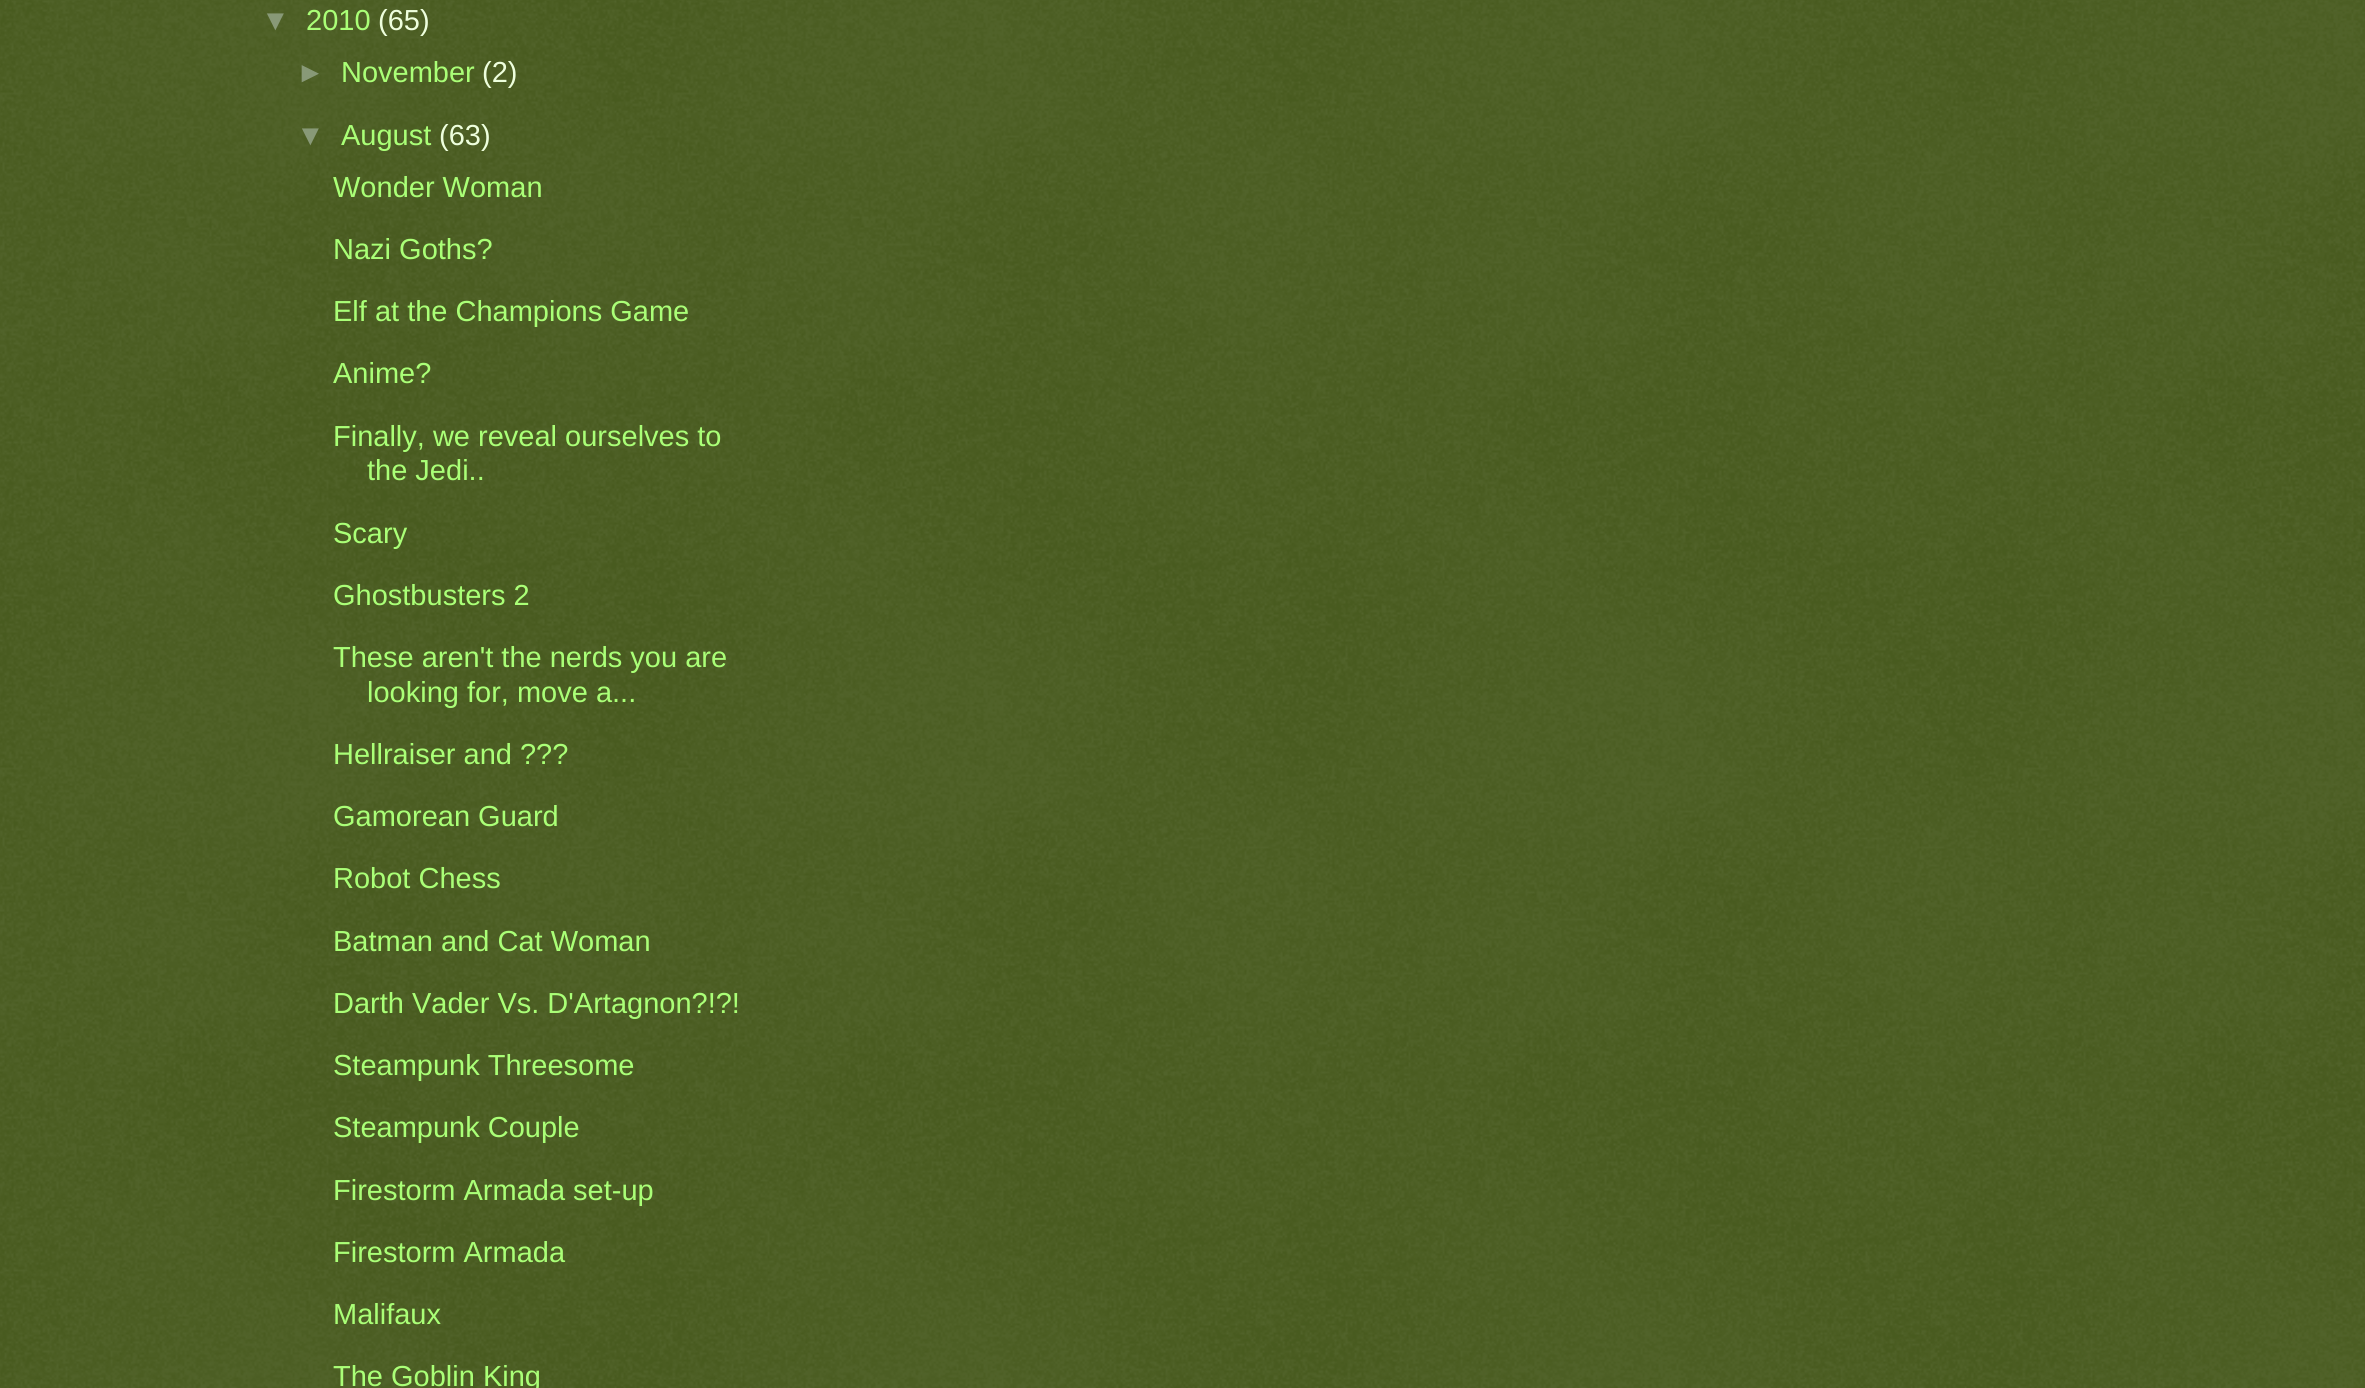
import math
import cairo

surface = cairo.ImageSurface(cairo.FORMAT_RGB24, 2365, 1388)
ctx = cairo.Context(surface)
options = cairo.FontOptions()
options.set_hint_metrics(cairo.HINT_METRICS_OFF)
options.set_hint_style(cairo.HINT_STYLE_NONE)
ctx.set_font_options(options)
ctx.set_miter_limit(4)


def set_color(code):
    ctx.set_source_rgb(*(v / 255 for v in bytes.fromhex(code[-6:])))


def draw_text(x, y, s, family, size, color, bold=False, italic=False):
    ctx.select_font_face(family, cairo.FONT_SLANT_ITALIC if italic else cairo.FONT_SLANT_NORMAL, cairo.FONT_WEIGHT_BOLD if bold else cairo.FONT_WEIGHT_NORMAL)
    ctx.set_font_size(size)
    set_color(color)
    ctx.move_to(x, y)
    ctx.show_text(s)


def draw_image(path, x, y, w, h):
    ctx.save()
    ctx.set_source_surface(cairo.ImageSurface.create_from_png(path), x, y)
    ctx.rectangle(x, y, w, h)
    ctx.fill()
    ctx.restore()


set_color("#2f4400")
ctx.paint()
draw_image("assets/img1.png", 0, 0, 2365, 1388)
draw_text(261, 30, "▼", "Liberation Sans", 29, "#889977")
draw_text(306, 30, "2010", "Liberation Sans", 29, "#aaff77")
draw_text(378, 30, "(65)", "Liberation Sans", 29, "#eeffdd")
draw_text(296, 82, "►", "Liberation Sans", 29, "#889977")
draw_text(341, 82, "November", "Liberation Sans", 29, "#aaff77")
draw_text(482, 82, "(2)", "Liberation Sans", 29, "#eeffdd")
draw_text(296, 145, "▼", "Liberation Sans", 29, "#889977")
draw_text(341, 145, "August", "Liberation Sans", 29, "#aaff77")
draw_text(439, 145, "(63)", "Liberation Sans", 29, "#eeffdd")
draw_text(333, 197, "Wonder Woman", "Liberation Sans", 29, "#aaff77")
draw_text(333, 259, "Nazi Goths?", "Liberation Sans", 29, "#aaff77")
draw_text(333, 321, "Elf at the Champions Game", "Liberation Sans", 29, "#aaff77")
draw_text(333, 383, "Anime?", "Liberation Sans", 29, "#aaff77")
draw_text(333, 446, "Finally, we reveal ourselves to", "Liberation Sans", 29, "#aaff77")
draw_text(367, 480, "the Jedi..", "Liberation Sans", 29, "#aaff77")
draw_text(333, 543, "Scary", "Liberation Sans", 29, "#aaff77")
draw_text(333, 605, "Ghostbusters 2", "Liberation Sans", 29, "#aaff77")
draw_text(333, 667, "These aren't the nerds you are", "Liberation Sans", 29, "#aaff77")
draw_text(367, 702, "looking for, move a...", "Liberation Sans", 29, "#aaff77")
draw_text(333, 764, "Hellraiser and ???", "Liberation Sans", 29, "#aaff77")
draw_text(333, 826, "Gamorean Guard", "Liberation Sans", 29, "#aaff77")
draw_text(333, 888, "Robot Chess", "Liberation Sans", 29, "#aaff77")
draw_text(333, 951, "Batman and Cat Woman", "Liberation Sans", 29, "#aaff77")
draw_text(333, 1013, "Darth Vader Vs. D'Artagnon?!?!", "Liberation Sans", 29, "#aaff77")
draw_text(333, 1075, "Steampunk Threesome", "Liberation Sans", 29, "#aaff77")
draw_text(333, 1137, "Steampunk Couple", "Liberation Sans", 29, "#aaff77")
draw_text(333, 1200, "Firestorm Armada set-up", "Liberation Sans", 29, "#aaff77")
draw_text(333, 1262, "Firestorm Armada", "Liberation Sans", 29, "#aaff77")
draw_text(333, 1324, "Malifaux", "Liberation Sans", 29, "#aaff77")
draw_text(333, 1386, "The Goblin King", "Liberation Sans", 29, "#aaff77")
surface.write_to_png("output.png")
